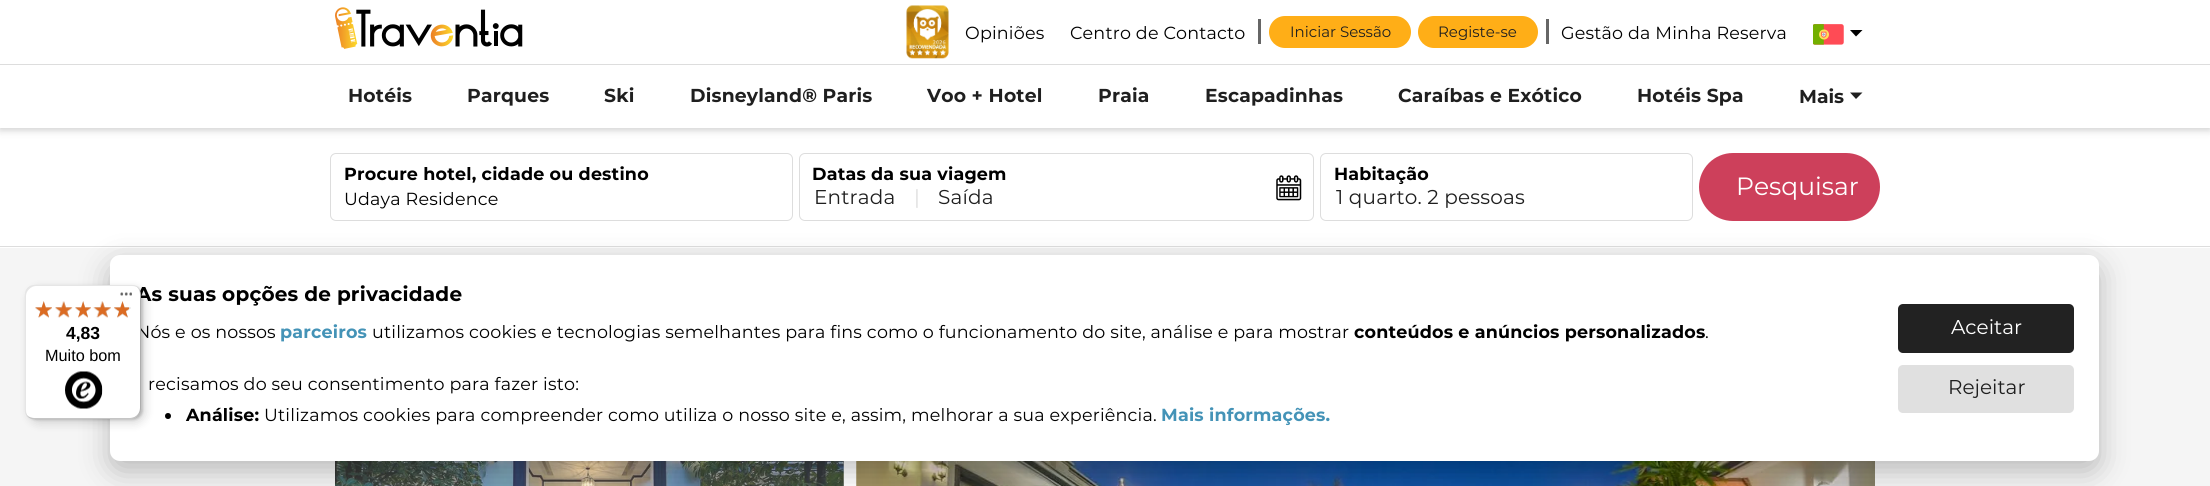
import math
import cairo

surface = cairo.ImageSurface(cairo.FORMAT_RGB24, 2210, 486)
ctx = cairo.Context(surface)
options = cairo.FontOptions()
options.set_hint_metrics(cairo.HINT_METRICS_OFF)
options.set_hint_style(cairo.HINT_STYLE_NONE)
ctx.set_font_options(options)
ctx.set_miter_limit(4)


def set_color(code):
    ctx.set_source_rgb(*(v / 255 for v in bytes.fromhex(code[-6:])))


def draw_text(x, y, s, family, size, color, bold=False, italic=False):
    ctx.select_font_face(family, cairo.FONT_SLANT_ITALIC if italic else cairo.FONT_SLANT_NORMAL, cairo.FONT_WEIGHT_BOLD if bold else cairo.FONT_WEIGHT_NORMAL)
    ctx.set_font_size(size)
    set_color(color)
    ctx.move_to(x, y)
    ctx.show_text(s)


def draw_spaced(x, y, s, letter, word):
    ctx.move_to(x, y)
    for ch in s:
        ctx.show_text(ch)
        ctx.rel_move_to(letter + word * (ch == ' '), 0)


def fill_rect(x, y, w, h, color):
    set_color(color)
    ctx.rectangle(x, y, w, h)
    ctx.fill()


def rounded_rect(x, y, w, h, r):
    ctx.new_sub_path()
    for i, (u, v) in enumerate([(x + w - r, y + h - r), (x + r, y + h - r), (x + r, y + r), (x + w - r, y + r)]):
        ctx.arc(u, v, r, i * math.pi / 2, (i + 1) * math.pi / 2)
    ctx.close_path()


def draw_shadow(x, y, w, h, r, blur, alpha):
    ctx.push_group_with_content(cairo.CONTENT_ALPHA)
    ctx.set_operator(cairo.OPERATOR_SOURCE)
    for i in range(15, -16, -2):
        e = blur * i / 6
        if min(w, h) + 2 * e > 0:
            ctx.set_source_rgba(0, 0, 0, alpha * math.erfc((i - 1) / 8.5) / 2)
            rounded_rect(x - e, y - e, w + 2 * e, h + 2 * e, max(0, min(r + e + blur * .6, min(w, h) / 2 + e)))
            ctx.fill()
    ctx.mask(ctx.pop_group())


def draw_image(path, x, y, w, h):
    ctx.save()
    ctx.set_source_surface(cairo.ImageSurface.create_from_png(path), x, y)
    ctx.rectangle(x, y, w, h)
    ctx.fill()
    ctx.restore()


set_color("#f5f5f5")
ctx.paint()
fill_rect(0, 128, 2210, 120, "#ffffff")
set_color("#000000")
draw_shadow(0, 3, 2210, 127, 0, 4, 0.2)
fill_rect(0, 0, 2210, 128, "#ffffff")
draw_image("assets/img1.png", 335, 7, 188, 42)
draw_image("assets/img2.png", 906, 5, 43, 54)
ctx.select_font_face("Montserrat")
ctx.set_font_size(17.5)
set_color("#000000")
draw_spaced(965, 39, "Opiniões", 0.19, 0)
draw_spaced(1070, 39, "Centro de Contacto", 0.19, 0)
fill_rect(1258, 19, 3, 25, "#666666")
set_color("#ffae17")
rounded_rect(1269, 16, 142, 32, 16)
ctx.fill()
draw_text(1290, 37, "Iniciar Sessão", "Montserrat", 15, "#1f1f1f")
set_color("#ffae17")
rounded_rect(1418, 16, 120, 32, 16)
ctx.fill()
draw_text(1438, 37, "Registe-se", "Montserrat", 15, "#1f1f1f")
fill_rect(1546, 19, 3, 25, "#666666")
ctx.set_font_size(17.5)
set_color("#000000")
draw_spaced(1561, 39, "Gestão da Minha Reserva", 0.19, 0)
draw_image("assets/img3.png", 1813, 24, 31, 21)
ctx.new_path()
ctx.move_to(1856, 36.5)
ctx.line_to(1850, 30)
ctx.line_to(1862.5, 30)
ctx.close_path()
ctx.fill()
fill_rect(0, 64, 2210, 1, "#dddddd")
ctx.select_font_face("Montserrat", cairo.FONT_SLANT_NORMAL, cairo.FONT_WEIGHT_BOLD)
ctx.set_font_size(18.75)
set_color("#1f1f1f")
draw_spaced(348, 102, "Hotéis", 0.19, 0)
draw_spaced(467, 102, "Parques", 0.19, 0)
draw_spaced(604, 102, "Ski", 0.19, 0)
draw_spaced(690, 102, "Disneyland® Paris", 0.19, 0)
draw_spaced(927, 102, "Voo + Hotel", 0.19, 0)
draw_spaced(1098, 102, "Praia", 0.19, 0)
draw_spaced(1205, 102, "Escapadinhas", 0.19, 0)
draw_spaced(1398, 102, "Caraíbas e Exótico", 0.19, 0)
draw_spaced(1637, 102, "Hotéis Spa", 0.19, 0)
draw_text(1799, 103, "Mais", "Montserrat", 18.75, "#1f1f1f", bold=True)
ctx.new_path()
ctx.move_to(1856, 99)
ctx.line_to(1850, 92.5)
ctx.line_to(1862.5, 92.5)
ctx.close_path()
ctx.fill()
fill_rect(0, 246, 2210, 1, "#dddddd")
rounded_rect(330.5, 153.5, 462, 67, 5.5)
ctx.set_line_width(1)
ctx.stroke()
ctx.set_font_size(17.5)
set_color("#000000")
draw_spaced(344, 180, "Procure hotel, cidade ou destino", 0.19, 0)
ctx.select_font_face("Montserrat")
draw_spaced(344, 205, "Udaya Residence", 0.19, 0)
rounded_rect(799.5, 153.5, 514, 67, 5.5)
set_color("#dddddd")
ctx.stroke()
ctx.select_font_face("Montserrat", cairo.FONT_SLANT_NORMAL, cairo.FONT_WEIGHT_BOLD)
set_color("#000000")
draw_spaced(812, 180, "Datas da sua viagem", 0.19, 0)
ctx.select_font_face("Montserrat")
ctx.set_font_size(20)
set_color("#1f1f1f")
draw_spaced(814, 204, "Entrada", 0.19, 0)
set_color("#dddddd")
draw_spaced(914, 204, "|", 0.19, 0)
set_color("#1f1f1f")
draw_spaced(938, 204, "Saída", 0.19, 0)
draw_image("assets/img4.png", 1276, 175, 26, 26)
rounded_rect(1320.5, 153.5, 372, 67, 5.5)
set_color("#dddddd")
ctx.stroke()
ctx.select_font_face("Montserrat", cairo.FONT_SLANT_NORMAL, cairo.FONT_WEIGHT_BOLD)
ctx.set_font_size(17.5)
set_color("#000000")
draw_spaced(1334, 180, "Habitação", 0.19, 0)
ctx.select_font_face("Montserrat")
ctx.set_font_size(20)
set_color("#1f1f1f")
draw_spaced(1336, 204, "1 quarto. 2 pessoas", 0.19, 0)
set_color("#cd405b")
rounded_rect(1699, 153, 181, 68, 34)
ctx.fill()
draw_text(1736, 195, "Pesquisar", "Montserrat", 25, "#ffffff")
fill_rect(335, 461, 522, 25, "#ffffff")
draw_image("assets/img5.png", 335, 461, 509, 25)
draw_image("assets/img6.png", 856, 461, 1019, 25)
set_color("#000000")
draw_shadow(110, 265, 1989, 206, 10, 15, 0.25)
set_color("#ffffff")
rounded_rect(110, 255, 1989, 206, 10)
ctx.fill()
set_color("#000000")
draw_shadow(29, 289, 116, 134, 10, 5, 0.15)
draw_shadow(26, 286, 117, 134, 10, 1, 0.15)
ctx.select_font_face("Montserrat", cairo.FONT_SLANT_NORMAL, cairo.FONT_WEIGHT_BOLD)
ctx.set_font_size(20)
set_color("#000000")
draw_spaced(136, 301, "As suas opções de privacidade", 0.19, 0)
ctx.select_font_face("Montserrat")
ctx.set_font_size(17.5)
draw_spaced(136, 338, "Nós e os nossos", 0.19, 0)
set_color("#ffffff")
rounded_rect(25, 285, 116, 134, 10)
ctx.fill()
ctx.set_source_rgba(0, 0, 0, 0.1)
ctx.new_path()
ctx.move_to(36, 286)
ctx.line_to(132, 286)
ctx.curve_to(135, 286, 137, 287, 139, 288)
ctx.curve_to(137, 286, 134, 285, 131, 285)
ctx.line_to(35, 285)
ctx.curve_to(29, 285, 25, 289, 25, 295)
ctx.line_to(25, 409)
ctx.curve_to(25, 412, 26, 415, 28, 417)
ctx.curve_to(27, 415, 26, 413, 26, 410)
ctx.line_to(26, 296)
ctx.curve_to(26, 291, 31, 286, 36, 286)
ctx.close_path()
ctx.fill()
ctx.set_source_rgba(0, 0, 0, 0.2)
ctx.new_path()
ctx.move_to(27, 416)
ctx.curve_to(29, 418, 32, 419, 35, 419)
ctx.line_to(131, 419)
ctx.curve_to(137, 419, 141, 415, 141, 409)
ctx.line_to(141, 295)
ctx.curve_to(141, 293, 140, 290, 139, 289)
ctx.curve_to(140, 290, 140, 292, 140, 294)
ctx.line_to(140, 408)
ctx.curve_to(140, 413, 136, 418, 130, 418)
ctx.line_to(34, 418)
ctx.curve_to(31, 418, 29, 417, 27, 416)
ctx.close_path()
ctx.fill()
ctx.set_source_rgba(0.196, 0.196, 0.196, 0.2)
ctx.new_path()
ctx.move_to(27, 415)
ctx.curve_to(29, 418, 32, 419, 35, 419)
ctx.line_to(131, 419)
ctx.curve_to(137, 419, 141, 415, 141, 409)
ctx.line_to(141, 295)
ctx.curve_to(141, 292, 140, 289, 137, 287)
ctx.curve_to(139, 289, 140, 292, 140, 294)
ctx.line_to(140, 408)
ctx.curve_to(140, 414, 136, 418, 130, 418)
ctx.line_to(34, 418)
ctx.curve_to(32, 418, 29, 417, 27, 415)
ctx.close_path()
ctx.fill()
draw_image("assets/img7.png", 120, 292, 12, 4)
ctx.set_source_rgba(1, 1, 1, 0.3)
ctx.new_path()
ctx.move_to(27, 415)
ctx.curve_to(29, 418, 32, 419, 35, 419)
ctx.line_to(131, 419)
ctx.curve_to(137, 419, 141, 415, 141, 409)
ctx.line_to(141, 408)
ctx.curve_to(141, 414, 136, 418, 131, 418)
ctx.line_to(34, 418)
ctx.curve_to(32, 418, 29, 417, 27, 415)
ctx.close_path()
ctx.fill()
draw_image("assets/img8.png", 35, 301, 17, 17)
draw_image("assets/img9.png", 55, 301, 17, 17)
draw_image("assets/img10.png", 75, 301, 16, 17)
draw_image("assets/img11.png", 93, 301, 18, 17)
draw_image("assets/img12.png", 114, 301, 17, 17)
draw_image("assets/img13.png", 35, 301, 17, 17)
draw_image("assets/img14.png", 55, 301, 18, 17)
draw_image("assets/img15.png", 75, 301, 16, 17)
draw_image("assets/img16.png", 93, 301, 18, 17)
draw_image("assets/img17.png", 114, 301, 15, 17)
draw_text(66, 339, "4,83", "Liberation Sans", 17.5, "#000000", bold=True)
draw_text(45, 361, "Muito bom", "Liberation Sans", 16.25, "#000000")
draw_image("assets/img18.png", 65, 371, 38, 38)
ctx.select_font_face("Montserrat", cairo.FONT_SLANT_NORMAL, cairo.FONT_WEIGHT_BOLD)
ctx.set_font_size(17.5)
set_color("#4493b7")
draw_spaced(280, 338, "parceiros", 0.19, 0)
ctx.select_font_face("Montserrat")
set_color("#000000")
draw_spaced(372, 338, "utilizamos cookies e tecnologias semelhantes para fins como o funcionamento do site, análise e para mostrar", 0.19, 0)
ctx.select_font_face("Montserrat", cairo.FONT_SLANT_NORMAL, cairo.FONT_WEIGHT_BOLD)
draw_spaced(1354, 338, "conteúdos e anúncios personalizados", 0.19, 0)
ctx.select_font_face("Montserrat")
draw_spaced(1705, 338, ".", 0.19, 0)
draw_spaced(148, 390, "recisamos do seu consentimento para fazer isto:", 0.19, 0)
ctx.new_path()
ctx.arc(168, 416, 3, 0, 2 * math.pi)
ctx.fill()
ctx.select_font_face("Montserrat", cairo.FONT_SLANT_NORMAL, cairo.FONT_WEIGHT_BOLD)
draw_spaced(186, 421, "Análise:", 0.19, 0)
ctx.select_font_face("Montserrat")
draw_spaced(264, 421, "Utilizamos cookies para compreender como utiliza o nosso site e, assim, melhorar a sua experiência.", 0.19, 0)
ctx.select_font_face("Montserrat", cairo.FONT_SLANT_NORMAL, cairo.FONT_WEIGHT_BOLD)
set_color("#4493b7")
draw_spaced(1161, 421, "Mais informações.", 0.19, 0)
set_color("#222222")
rounded_rect(1898, 304, 176, 49, 5)
ctx.fill()
draw_text(1951, 334, "Aceitar", "Montserrat", 20, "#ffffff")
set_color("#e0e0e0")
rounded_rect(1898, 365, 176, 48, 5)
ctx.fill()
draw_text(1948, 394, "Rejeitar", "Montserrat", 20, "#1f1f1f")
surface.write_to_png("output.png")
